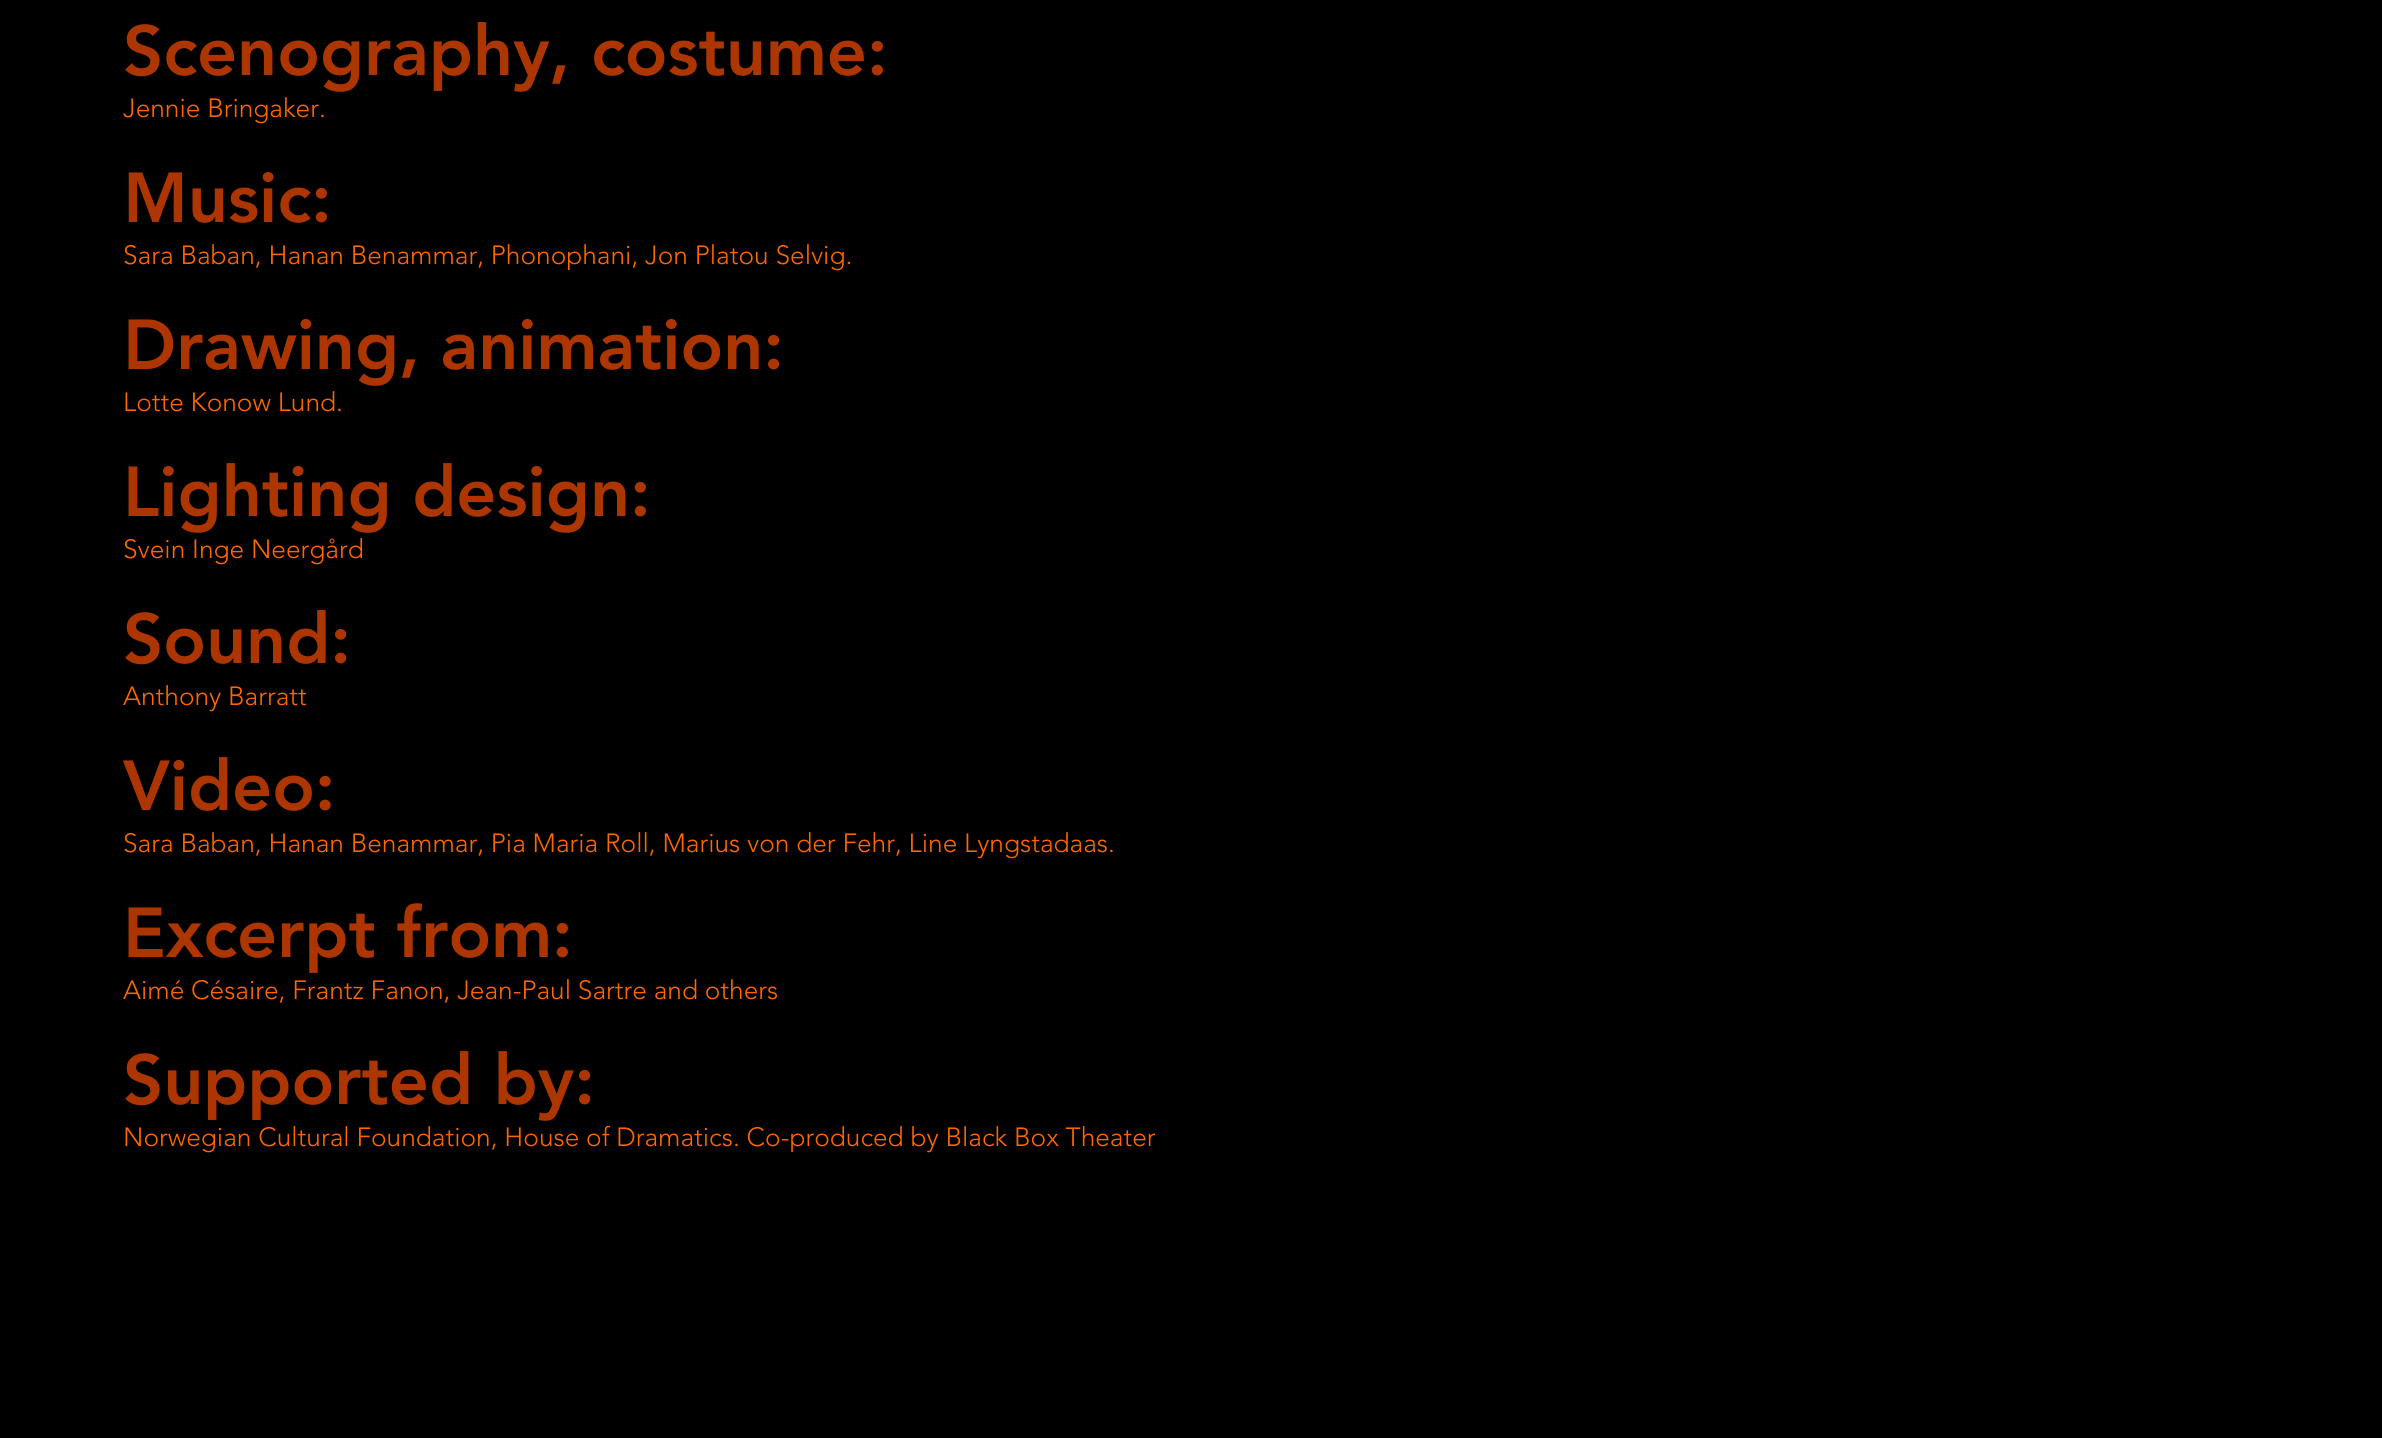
import math
import cairo

surface = cairo.ImageSurface(cairo.FORMAT_RGB24, 2382, 1438)
ctx = cairo.Context(surface)
options = cairo.FontOptions()
options.set_hint_metrics(cairo.HINT_METRICS_OFF)
options.set_hint_style(cairo.HINT_STYLE_NONE)
ctx.set_font_options(options)
ctx.set_miter_limit(4)


def set_color(code):
    ctx.set_source_rgb(*(v / 255 for v in bytes.fromhex(code[-6:])))


def draw_text(x, y, s, family, size, color, bold=False, italic=False):
    ctx.select_font_face(family, cairo.FONT_SLANT_ITALIC if italic else cairo.FONT_SLANT_NORMAL, cairo.FONT_WEIGHT_BOLD if bold else cairo.FONT_WEIGHT_NORMAL)
    ctx.set_font_size(size)
    set_color(color)
    ctx.move_to(x, y)
    ctx.show_text(s)


set_color("#000000")
ctx.paint()
draw_text(123, 75, "Scenography, costume:", "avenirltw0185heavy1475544 Black", 70, "#ad3600")
draw_text(123, 117, "Jennie Bringaker.", "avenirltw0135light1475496 Light", 26.25, "#ff6600")
draw_text(123, 222, "Music:", "avenirltw0185heavy1475544 Black", 70, "#ad3600")
draw_text(123, 264, "Sara Baban, Hanan Benammar, Phonophani, Jon Platou Selvig.", "avenirltw0135light1475496 Light", 26.25, "#ff6600")
draw_text(123, 369, "Drawing, animation:", "avenirltw0185heavy1475544 Black", 70, "#ad3600")
draw_text(123, 411, "Lotte Konow Lund.", "avenirltw0135light1475496 Light", 26.25, "#ff6600")
draw_text(123, 516, "Lighting design:", "avenirltw0185heavy1475544 Black", 70, "#ad3600")
draw_text(123, 558, "Svein Inge Neergård", "avenirltw0135light1475496 Light", 26.25, "#ff6600")
draw_text(123, 663, "Sound:", "avenirltw0185heavy1475544 Black", 70, "#ad3600")
draw_text(123, 705, "Anthony Barratt", "avenirltw0135light1475496 Light", 26.25, "#ff6600")
draw_text(123, 810, "Video:", "avenirltw0185heavy1475544 Black", 70, "#ad3600")
draw_text(123, 852, "Sara Baban, Hanan Benammar, Pia Maria Roll, Marius von der Fehr, Line Lyngstadaas.", "avenirltw0135light1475496 Light", 26.25, "#ff6600")
draw_text(123, 957, "Excerpt from:", "avenirltw0185heavy1475544 Black", 70, "#ad3600")
draw_text(123, 999, "Aimé Césaire, Frantz Fanon, Jean-Paul Sartre and others", "avenirltw0135light1475496 Light", 26.25, "#ff6600")
draw_text(123, 1104, "Supported by:", "avenirltw0185heavy1475544 Black", 70, "#ad3600")
draw_text(123, 1146, "Norwegian Cultural Foundation, House of Dramatics. Co-produced by Black Box Theater", "avenirltw0135light1475496 Light", 26.25, "#ff6600")
surface.write_to_png("output.png")
